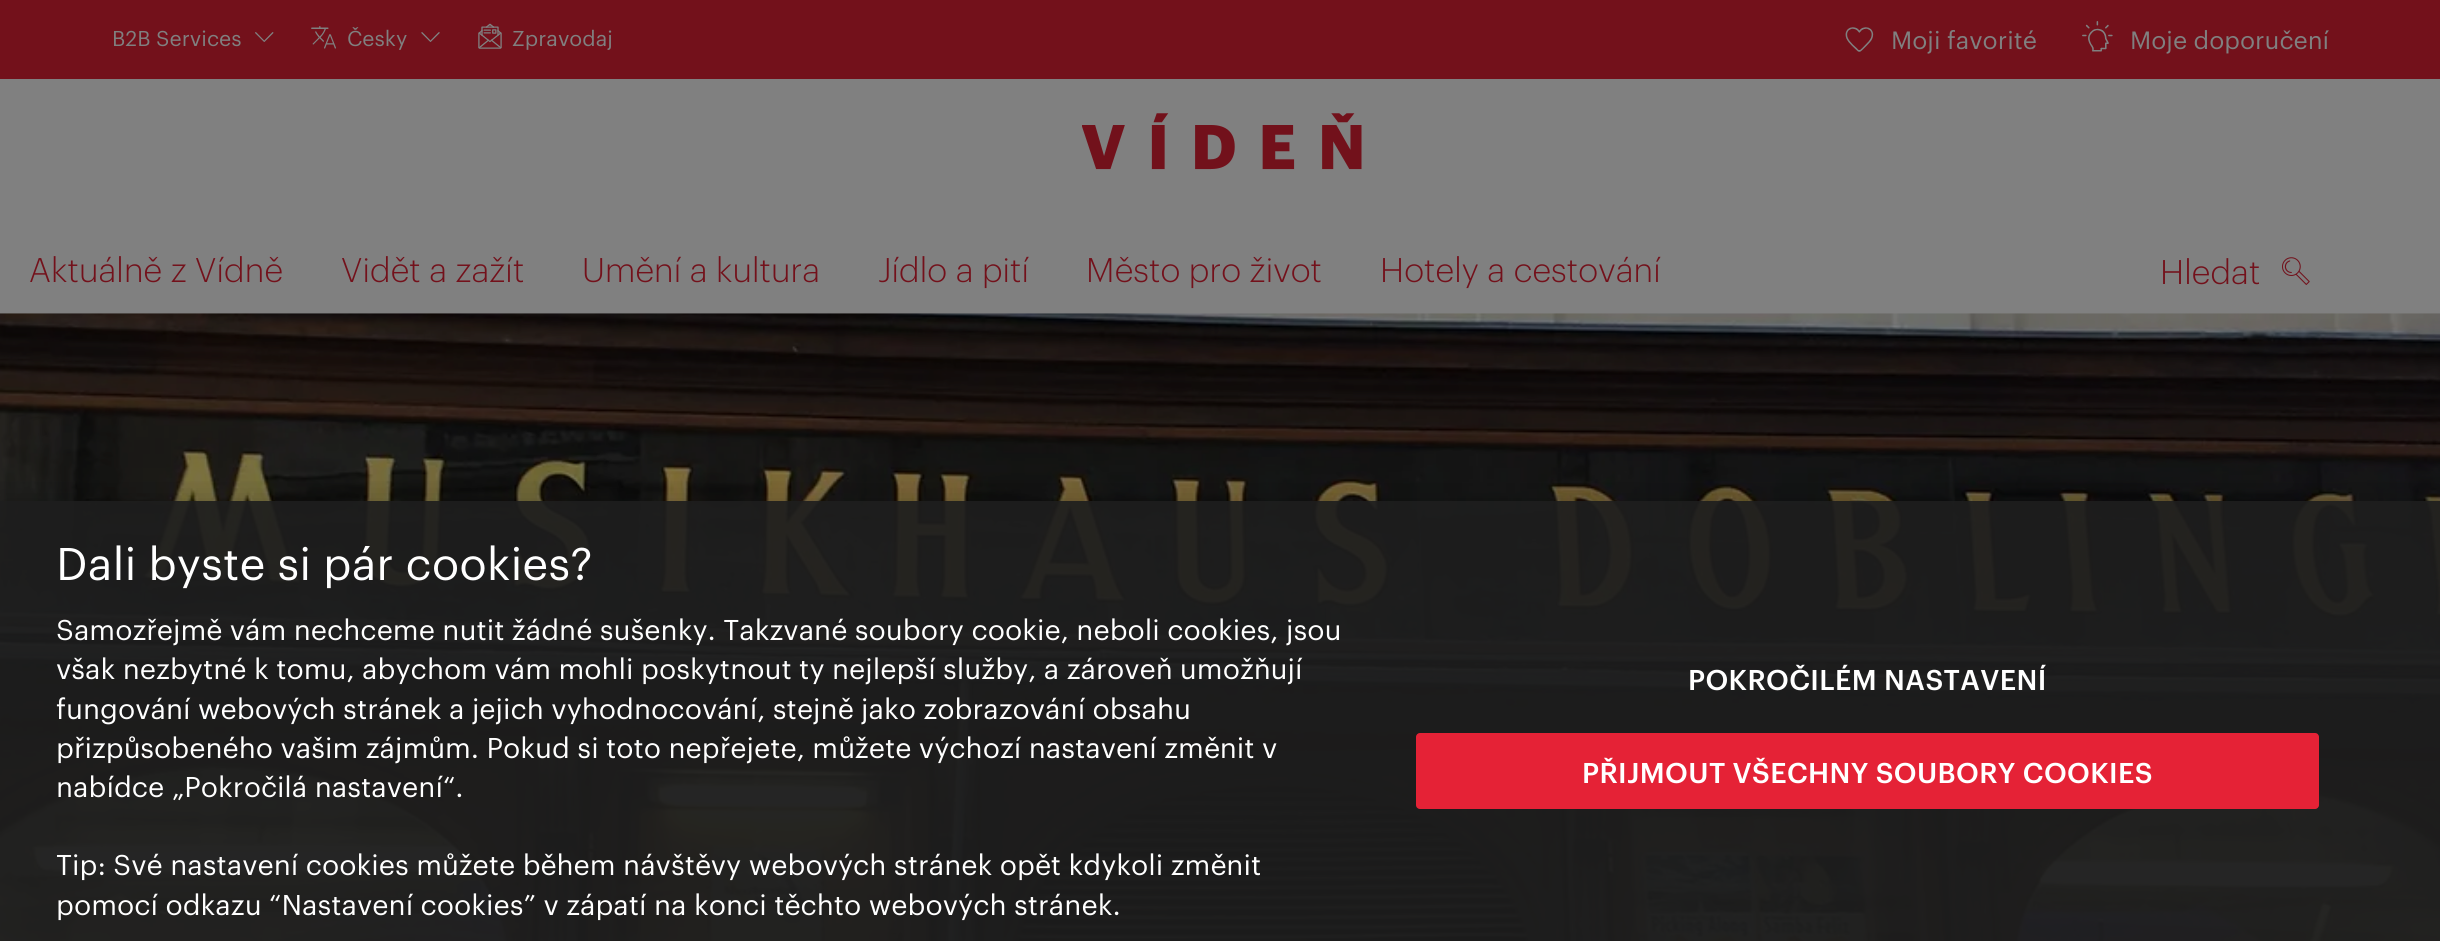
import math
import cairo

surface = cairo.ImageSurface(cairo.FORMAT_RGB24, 2440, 941)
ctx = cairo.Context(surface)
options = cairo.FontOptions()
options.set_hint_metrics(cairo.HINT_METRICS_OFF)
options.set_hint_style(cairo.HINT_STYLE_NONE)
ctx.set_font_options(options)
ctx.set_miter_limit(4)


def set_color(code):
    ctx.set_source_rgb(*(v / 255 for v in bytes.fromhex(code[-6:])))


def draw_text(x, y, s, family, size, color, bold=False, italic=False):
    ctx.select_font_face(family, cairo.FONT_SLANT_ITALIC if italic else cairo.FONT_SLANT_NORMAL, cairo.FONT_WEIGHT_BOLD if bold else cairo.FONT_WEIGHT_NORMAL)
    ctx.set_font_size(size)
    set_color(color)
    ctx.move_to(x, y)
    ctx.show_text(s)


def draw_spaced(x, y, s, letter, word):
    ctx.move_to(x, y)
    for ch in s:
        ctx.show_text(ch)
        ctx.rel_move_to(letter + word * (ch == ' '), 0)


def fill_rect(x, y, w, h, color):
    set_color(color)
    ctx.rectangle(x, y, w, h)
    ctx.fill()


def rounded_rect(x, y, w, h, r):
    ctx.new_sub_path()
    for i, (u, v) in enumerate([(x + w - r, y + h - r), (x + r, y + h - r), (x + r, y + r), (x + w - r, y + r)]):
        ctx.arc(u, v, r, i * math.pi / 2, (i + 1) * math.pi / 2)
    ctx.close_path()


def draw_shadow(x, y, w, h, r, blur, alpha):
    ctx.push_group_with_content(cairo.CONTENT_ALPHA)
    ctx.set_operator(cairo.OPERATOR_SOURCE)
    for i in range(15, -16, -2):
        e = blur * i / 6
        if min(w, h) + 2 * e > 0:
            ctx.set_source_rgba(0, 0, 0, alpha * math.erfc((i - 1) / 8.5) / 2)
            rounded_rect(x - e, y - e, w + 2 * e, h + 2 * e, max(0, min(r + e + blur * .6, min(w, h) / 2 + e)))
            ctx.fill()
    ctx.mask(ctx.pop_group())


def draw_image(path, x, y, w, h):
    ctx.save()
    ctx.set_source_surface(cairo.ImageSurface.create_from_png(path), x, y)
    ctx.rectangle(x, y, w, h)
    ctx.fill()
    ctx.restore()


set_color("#808080")
ctx.paint()
fill_rect(0, 0, 2440, 79, "#73111b")
draw_text(112, 46, "B2B Services", "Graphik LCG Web", 21, "#808080")
draw_image("assets/img1.png", 255, 32, 19, 10)
draw_image("assets/img2.png", 311, 26, 25, 23)
draw_text(347, 46, "Česky", "Graphik LCG Web", 21, "#808080")
draw_image("assets/img3.png", 421, 32, 19, 10)
draw_image("assets/img4.png", 478, 23, 24, 26)
draw_text(512, 46, "Zpravodaj", "Graphik LCG Web", 21, "#808080")
draw_image("assets/img5.png", 1845, 27, 29, 25)
draw_text(1891, 49, "Moji favorité", "Graphik LCG Web", 24.5, "#808080")
draw_image("assets/img6.png", 2082, 21, 31, 31)
draw_text(2130, 49, "Moje doporučení", "Graphik LCG Web", 24.5, "#808080")
draw_image("assets/img7.png", 1082, 113, 280, 57)
draw_text(29, 282, "Aktuálně z Vídně", "Graphik LCG Web Light", 33.5, "#73111b")
draw_text(341, 282, "Vidět a zažít", "Graphik LCG Web Light", 33.5, "#73111b")
draw_text(582, 282, "Umění a kultura", "Graphik LCG Web Light", 33.5, "#73111b")
draw_text(878, 282, "Jídlo a pití", "Graphik LCG Web Light", 33.5, "#73111b")
draw_text(1086, 282, "Město pro život", "Graphik LCG Web Light", 33.5, "#73111b")
draw_text(1380, 282, "Hotely a cestování", "Graphik LCG Web Light", 33.5, "#73111b")
draw_text(2160, 284, "Hledat", "Graphik LCG Web Light", 33.5, "#73111b")
draw_image("assets/img8.png", 2282, 257, 28, 28)
draw_image("assets/img9.png", 0, 313, 2440, 628)
ctx.save()
ctx.rectangle(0, 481, 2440, 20)
ctx.clip()
set_color("#000000")
draw_shadow(0, 501, 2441, 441, 0, 16, 0.2)
ctx.restore()
ctx.set_source_rgba(0.118, 0.118, 0.118, 0.92)
ctx.rectangle(0, 501, 2440, 440)
ctx.fill()
draw_text(56, 580, "Dali byste si pár cookies?", "Graphik LCG Web", 44.75, "#ffffff")
draw_text(56, 640, "Samozřejmě vám nechceme nutit žádné sušenky. Takzvané soubory cookie, neboli cookies, jsou", "Graphik LCG Web", 28, "#ffffff")
draw_text(56, 679, "však nezbytné k tomu, abychom vám mohli poskytnout ty nejlepší služby, a zároveň umožňují", "Graphik LCG Web", 28, "#ffffff")
draw_text(56, 719, "fungování webových stránek a jejich vyhodnocování, stejně jako zobrazování obsahu", "Graphik LCG Web", 28, "#ffffff")
draw_text(56, 758, "přizpůsobeného vašim zájmům. Pokud si toto nepřejete, můžete výchozí nastavení změnit v", "Graphik LCG Web", 28, "#ffffff")
draw_text(56, 797, "nabídce „Pokročilá nastavení“.", "Graphik LCG Web", 28, "#ffffff")
draw_text(56, 875, "Tip: Své nastavení cookies můžete během návštěvy webových stránek opět kdykoli změnit", "Graphik LCG Web", 28, "#ffffff")
draw_text(56, 915, "pomocí odkazu “Nastavení cookies” v zápatí na konci těchto webových stránek.", "Graphik LCG Web", 28, "#ffffff")
ctx.select_font_face("Graphik LCG Web Medium")
draw_spaced(1688, 690, "POKROČILÉM NASTAVENÍ", 0.25, 0)
set_color("#e52236")
rounded_rect(1416, 733, 903, 76, 4)
ctx.fill()
set_color("#ffffff")
draw_spaced(1582, 783, "PŘIJMOUT VŠECHNY SOUBORY COOKIES", 0.25, 0)
surface.write_to_png("output.png")
